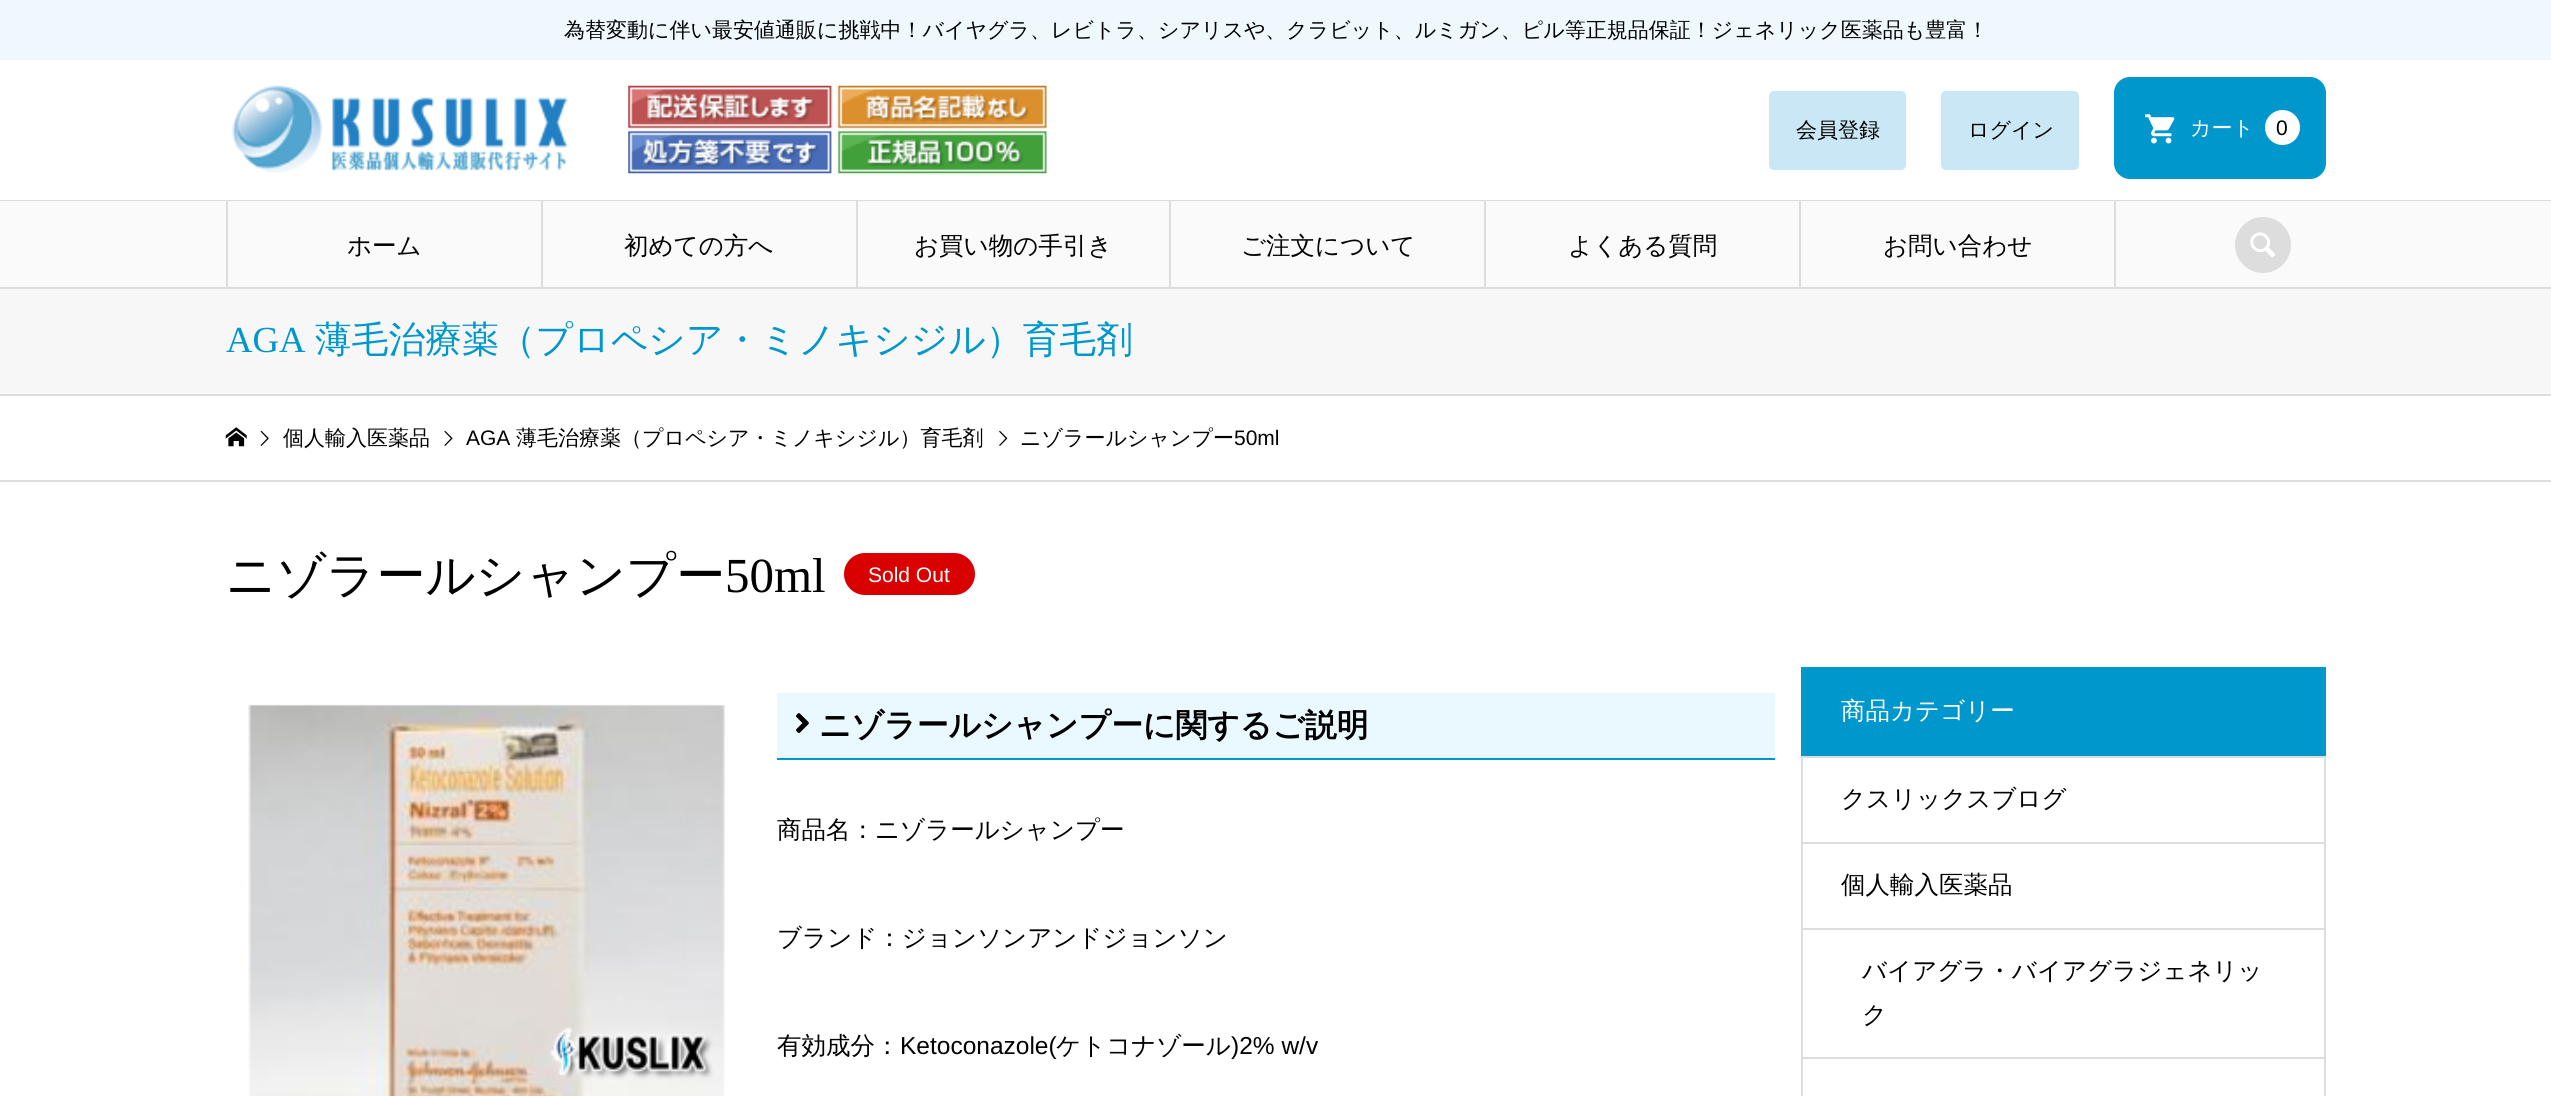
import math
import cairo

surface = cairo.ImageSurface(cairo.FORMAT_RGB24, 2551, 1096)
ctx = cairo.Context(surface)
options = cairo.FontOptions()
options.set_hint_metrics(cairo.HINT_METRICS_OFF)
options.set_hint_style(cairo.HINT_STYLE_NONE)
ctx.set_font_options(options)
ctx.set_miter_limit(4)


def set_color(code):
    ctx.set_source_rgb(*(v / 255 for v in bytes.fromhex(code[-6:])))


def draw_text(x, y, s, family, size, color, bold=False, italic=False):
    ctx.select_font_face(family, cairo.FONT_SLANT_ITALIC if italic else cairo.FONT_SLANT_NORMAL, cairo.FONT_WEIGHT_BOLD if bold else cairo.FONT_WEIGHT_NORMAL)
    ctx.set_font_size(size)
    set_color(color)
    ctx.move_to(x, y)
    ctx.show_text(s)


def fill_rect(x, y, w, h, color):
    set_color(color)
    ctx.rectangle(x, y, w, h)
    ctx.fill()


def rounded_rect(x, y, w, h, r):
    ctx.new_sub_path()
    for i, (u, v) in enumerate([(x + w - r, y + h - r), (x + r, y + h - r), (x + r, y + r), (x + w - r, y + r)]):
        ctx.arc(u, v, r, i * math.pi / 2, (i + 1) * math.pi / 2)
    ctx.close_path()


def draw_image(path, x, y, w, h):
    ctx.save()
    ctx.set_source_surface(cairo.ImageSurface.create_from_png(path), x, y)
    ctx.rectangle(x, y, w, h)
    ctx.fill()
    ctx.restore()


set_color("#ffffff")
ctx.paint()
fill_rect(0, 0, 2551, 60, "#eff9fd")
draw_text(564, 37, "為替変動に伴い最安値通販に挑戦中！バイヤグラ、レビトラ、シアリスや、クラビット、ルミガン、ピル等正規品保証！ジェネリック医薬品も豊富！", "WenQuanYi Zen Hei Medium", 21, "#000000")
fill_rect(0, 200, 2551, 1, "#dddddd")
draw_image("assets/img1.png", 232, 85, 336, 88)
draw_image("assets/img2.png", 628, 85, 419, 89)
set_color("#c9e7f4")
rounded_rect(1769, 91, 137, 79, 5)
ctx.fill()
draw_text(1796, 137, "会員登録", "WenQuanYi Zen Hei Medium", 21, "#000000")
set_color("#c9e7f4")
rounded_rect(1941, 91, 138, 79, 5)
ctx.fill()
draw_text(1968, 137, "ログイン", "WenQuanYi Zen Hei Medium", 21, "#000000")
set_color("#0097cc")
rounded_rect(2114, 77, 212, 102, 16)
ctx.fill()
draw_image("assets/img3.png", 2145, 114, 30, 30)
draw_text(2190, 135, "カート", "WenQuanYi Zen Hei Medium", 21, "#ffffff")
ctx.new_path()
ctx.arc(2282.5, 127.5, 17.5, 0, 2 * math.pi)
ctx.fill()
draw_text(2276, 135, "0", "Liberation Sans", 21, "#000000")
fill_rect(0, 201, 2551, 86, "#fafafa")
fill_rect(0, 287, 2551, 2, "#dddddd")
fill_rect(226, 201, 2, 88, "#dddddd")
fill_rect(541, 201, 2, 88, "#dddddd")
draw_text(347, 254, "ホーム", "WenQuanYi Zen Hei Medium", 24.5, "#000000")
fill_rect(856, 201, 2, 88, "#dddddd")
draw_text(624, 254, "初めての方へ", "WenQuanYi Zen Hei Medium", 24.5, "#000000")
fill_rect(1169, 201, 2, 88, "#dddddd")
draw_text(914, 254, "お買い物の手引き", "WenQuanYi Zen Hei Medium", 24.5, "#000000")
fill_rect(1484, 201, 2, 88, "#dddddd")
draw_text(1241, 254, "ご注文について", "WenQuanYi Zen Hei Medium", 24.5, "#000000")
fill_rect(1799, 201, 2, 88, "#dddddd")
draw_text(1568, 254, "よくある質問", "WenQuanYi Zen Hei Medium", 24.5, "#000000")
fill_rect(2114, 201, 2, 88, "#dddddd")
draw_text(1883, 254, "お問い合わせ", "WenQuanYi Zen Hei Medium", 24.5, "#000000")
set_color("#dddddd")
ctx.new_path()
ctx.arc(2263, 245, 28, 0, 2 * math.pi)
ctx.fill()
draw_image("assets/img4.png", 2250, 232, 26, 26)
fill_rect(0, 289, 2551, 105, "#f7f7f7")
fill_rect(0, 394, 2551, 2, "#dddddd")
draw_text(226, 352, "AGA", "Liberation Serif", 36.75, "#0097cc")
draw_text(315, 352, "薄毛治療薬（プロペシア・ミノキシジル）育毛剤", "WenQuanYi Zen Hei Medium", 36.75, "#0097cc")
fill_rect(0, 480, 2551, 2, "#dddddd")
draw_image("assets/img5.png", 225, 427, 22, 20)
draw_image("assets/img6.png", 260, 430, 9, 16)
draw_text(283, 445, "個人輸入医薬品", "WenQuanYi Zen Hei Medium", 21, "#000000")
draw_image("assets/img7.png", 444, 430, 9, 16)
draw_text(466, 445, "AGA", "Liberation Sans", 21, "#000000")
draw_text(516, 445, "薄毛治療薬（プロペシア・ミノキシジル）育毛剤", "WenQuanYi Zen Hei Medium", 21, "#000000")
draw_image("assets/img8.png", 999, 430, 9, 16)
draw_text(1020, 445, "ニゾラールシャンプー", "WenQuanYi Zen Hei Medium", 21, "#000000")
draw_text(1234, 445, "50ml", "Liberation Sans", 21, "#000000")
draw_text(226, 592, "ニゾラールシャンプー", "WenQuanYi Zen Hei Medium", 49, "#000000")
draw_text(725, 592, "50ml", "Liberation Serif", 49, "#000000")
set_color("#d90000")
rounded_rect(844, 553, 131, 42, 21)
ctx.fill()
draw_text(868, 582, "Sold Out", "Liberation Sans", 21, "#ffffff")
draw_image("assets/img9.png", 248, 704, 477, 392)
fill_rect(777, 693, 998, 65, "#e9f9ff")
fill_rect(777, 758, 998, 2, "#0097cc")
draw_image("assets/img10.png", 796, 713, 13, 20)
draw_text(819, 736, "ニゾラールシャンプーに関するご説明", "WenQuanYi Zen Hei", 31.8, "#000000", bold=True)
draw_text(777, 838, "商品名：ニゾラールシャンプー", "WenQuanYi Zen Hei Medium", 24.5, "#000000")
draw_text(777, 946, "ブランド：ジョンソンアンドジョンソン", "WenQuanYi Zen Hei Medium", 24.5, "#000000")
draw_text(777, 1054, "有効成分：", "WenQuanYi Zen Hei Medium", 24.5, "#000000")
draw_text(900, 1054, "Ketoconazole(", "Liberation Sans", 24.5, "#000000")
draw_text(1056, 1054, "ケトコナゾール", "WenQuanYi Zen Hei Medium", 24.5, "#000000")
draw_text(1231, 1054, ")2% w/v", "Liberation Sans", 24.5, "#000000")
fill_rect(1801, 667, 525, 89, "#0097cc")
draw_text(1841, 719, "商品カテゴリー", "WenQuanYi Zen Hei Medium", 24.5, "#ffffff")
fill_rect(2324, 756, 2, 340, "#dddddd")
fill_rect(1801, 756, 2, 340, "#dddddd")
fill_rect(1803, 756, 521, 2, "#dddddd")
draw_text(1841, 807, "クスリックスブログ", "WenQuanYi Zen Hei Medium", 24.5, "#000000")
fill_rect(1803, 842, 521, 2, "#dddddd")
draw_text(1841, 893, "個人輸入医薬品", "WenQuanYi Zen Hei Medium", 24.5, "#000000")
fill_rect(1803, 928, 521, 2, "#dddddd")
draw_text(1862, 979, "バイアグラ・バイアグラジェネリッ", "WenQuanYi Zen Hei Medium", 24.5, "#000000")
draw_text(1862, 1023, "ク", "WenQuanYi Zen Hei Medium", 24.5, "#000000")
fill_rect(1803, 1057, 521, 2, "#dddddd")
surface.write_to_png("output.png")
